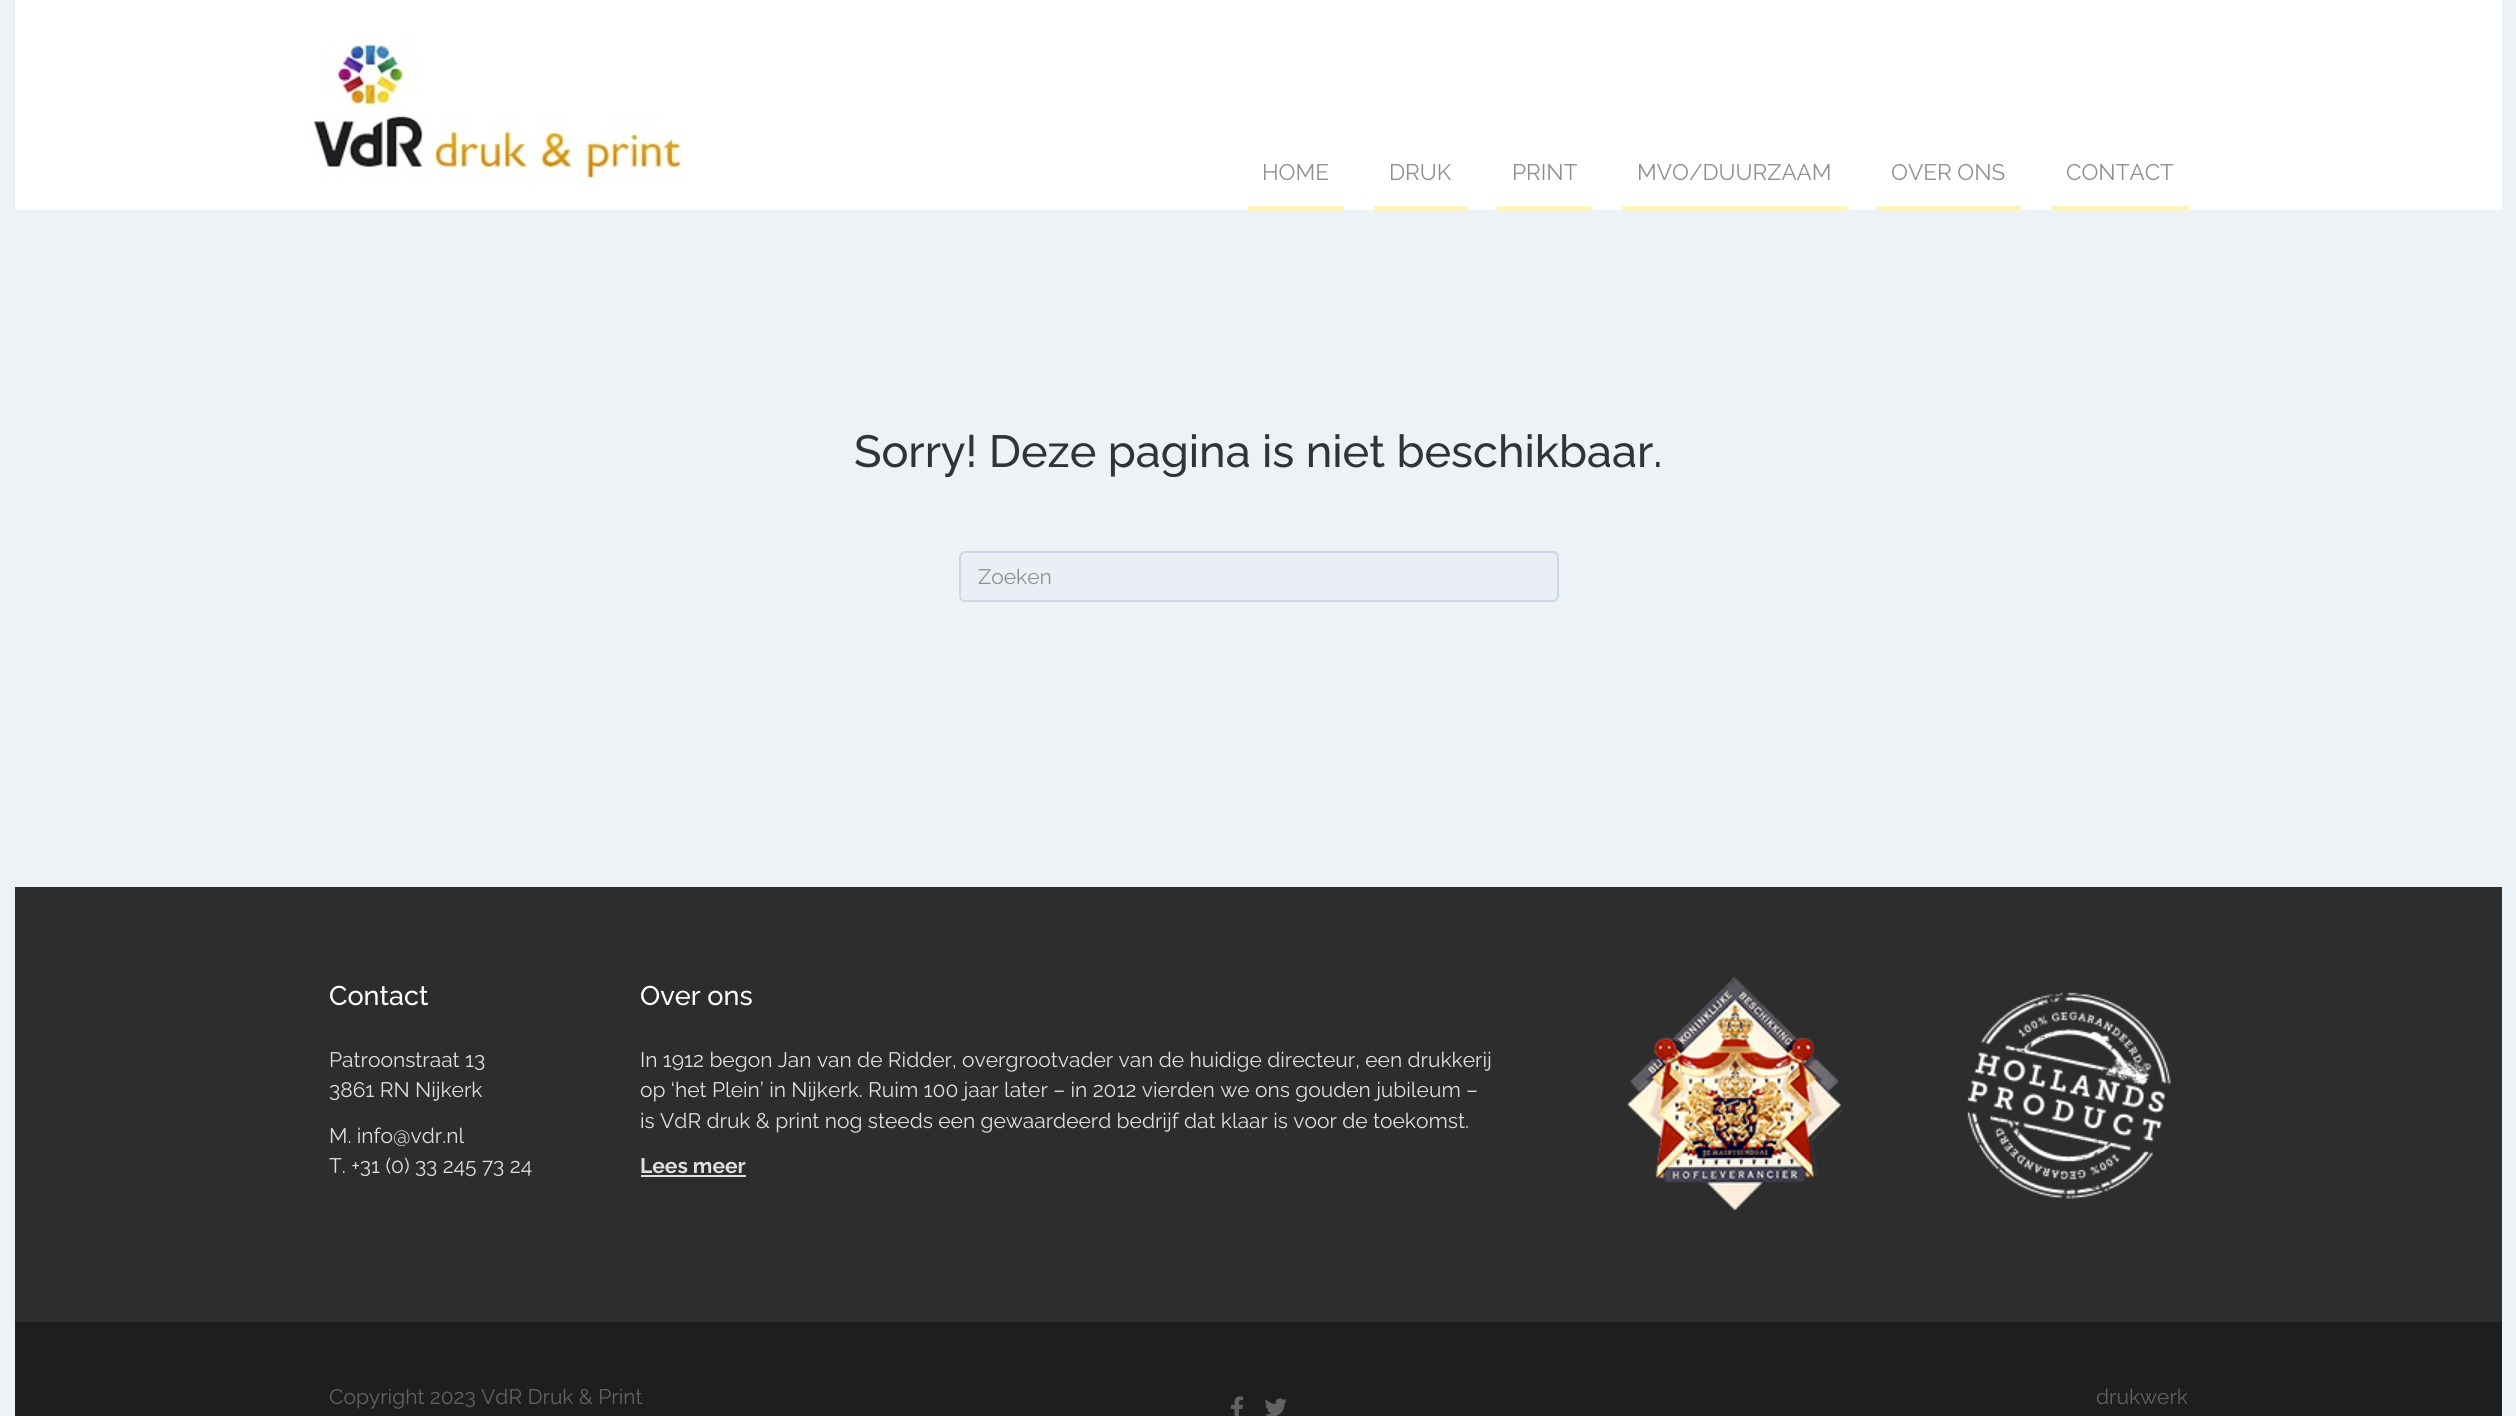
import math
import cairo

surface = cairo.ImageSurface(cairo.FORMAT_RGB24, 2516, 1416)
ctx = cairo.Context(surface)
options = cairo.FontOptions()
options.set_hint_metrics(cairo.HINT_METRICS_OFF)
options.set_hint_style(cairo.HINT_STYLE_NONE)
ctx.set_font_options(options)
ctx.set_miter_limit(4)


def set_color(code):
    ctx.set_source_rgb(*(v / 255 for v in bytes.fromhex(code[-6:])))


def draw_text(x, y, s, family, size, color, bold=False, italic=False):
    ctx.select_font_face(family, cairo.FONT_SLANT_ITALIC if italic else cairo.FONT_SLANT_NORMAL, cairo.FONT_WEIGHT_BOLD if bold else cairo.FONT_WEIGHT_NORMAL)
    ctx.set_font_size(size)
    set_color(color)
    ctx.move_to(x, y)
    ctx.show_text(s)


def fill_rect(x, y, w, h, color):
    set_color(color)
    ctx.rectangle(x, y, w, h)
    ctx.fill()


def rounded_rect(x, y, w, h, r):
    ctx.new_sub_path()
    for i, (u, v) in enumerate([(x + w - r, y + h - r), (x + r, y + h - r), (x + r, y + r), (x + w - r, y + r)]):
        ctx.arc(u, v, r, i * math.pi / 2, (i + 1) * math.pi / 2)
    ctx.close_path()


def draw_image(path, x, y, w, h):
    ctx.save()
    ctx.set_source_surface(cairo.ImageSurface.create_from_png(path), x, y)
    ctx.rectangle(x, y, w, h)
    ctx.fill()
    ctx.restore()


set_color("#edf2f7")
ctx.paint()
fill_rect(15, 0, 2487, 210, "#ffffff")
draw_image("assets/img1.png", 311, 45, 371, 135)
fill_rect(1248, 206, 96, 5, "#fcf4be")
draw_text(1262, 180, "HOME", "Raleway", 22.5, "#909090")
fill_rect(1374, 206, 93, 5, "#fcf4be")
draw_text(1389, 180, "DRUK", "Raleway", 22.5, "#909090")
fill_rect(1497, 206, 95, 5, "#fcf4be")
draw_text(1512, 180, "PRINT", "Raleway", 22.5, "#909090")
fill_rect(1622, 206, 225, 5, "#fcf4be")
draw_text(1637, 180, "MVO/DUURZAAM", "Raleway", 22.5, "#909090")
fill_rect(1877, 206, 144, 5, "#fcf4be")
draw_text(1891, 180, "OVER ONS", "Raleway", 22.5, "#909090")
fill_rect(2051, 206, 138, 5, "#fcf4be")
draw_text(2066, 180, "CONTACT", "Raleway", 22.5, "#909090")
draw_text(854, 467, "Sorry! Deze pagina is niet beschikbaar.", "Raleway Medium", 45, "#333333")
set_color("#e9eff5")
rounded_rect(960, 552, 598, 49, 5)
ctx.fill_preserve()
set_color("#cad8e7")
ctx.stroke()
draw_text(978, 584, "Zoeken", "Raleway", 21, "#909090")
fill_rect(15, 887, 2487, 435, "#2d2d2d")
draw_text(329, 1005, "Contact", "Raleway Medium", 27, "#ffffff")
draw_text(329, 1067, "Patroonstraat 13", "Raleway", 21, "#e0e0e0")
draw_text(329, 1097, "3861 RN Nijkerk", "Raleway", 21, "#e0e0e0")
draw_text(329, 1143, "M. info@vdr.nl", "Raleway", 21, "#e0e0e0")
draw_text(329, 1173, "T. +31 (0) 33 245 73 24", "Raleway", 21, "#e0e0e0")
draw_text(640, 1005, "Over ons", "Raleway Medium", 27, "#ffffff")
draw_text(640, 1067, "In 1912 begon Jan van de Ridder, overgrootvader van de huidige directeur, een drukkerij", "Raleway", 21, "#e0e0e0")
draw_text(640, 1097, "op ‘het Plein’ in Nijkerk. Ruim 100 jaar later – in 2012 vierden we ons gouden jubileum –", "Raleway", 21, "#e0e0e0")
draw_text(640, 1128, "is VdR druk & print nog steeds een gewaardeerd bedrijf dat klaar is voor de toekomst.", "Raleway", 21, "#e0e0e0")
draw_text(640, 1173, "Lees meer", "Raleway", 21, "#e0e0e0", bold=True)
fill_rect(641, 1175, 105, 2, "#e0e0e0")
draw_image("assets/img2.png", 1627, 976, 215, 235)
draw_image("assets/img3.png", 1967, 992, 204, 207)
fill_rect(15, 1322, 2487, 94, "#1e1e1e")
draw_text(329, 1404, "Copyright 2023 VdR Druk & Print", "Raleway", 21, "#626262")
draw_image("assets/img4.png", 1231, 1396, 12, 20)
draw_image("assets/img5.png", 1265, 1398, 22, 18)
draw_text(2096, 1404, "drukwerk", "Raleway", 21, "#626262")
surface.write_to_png("output.png")
